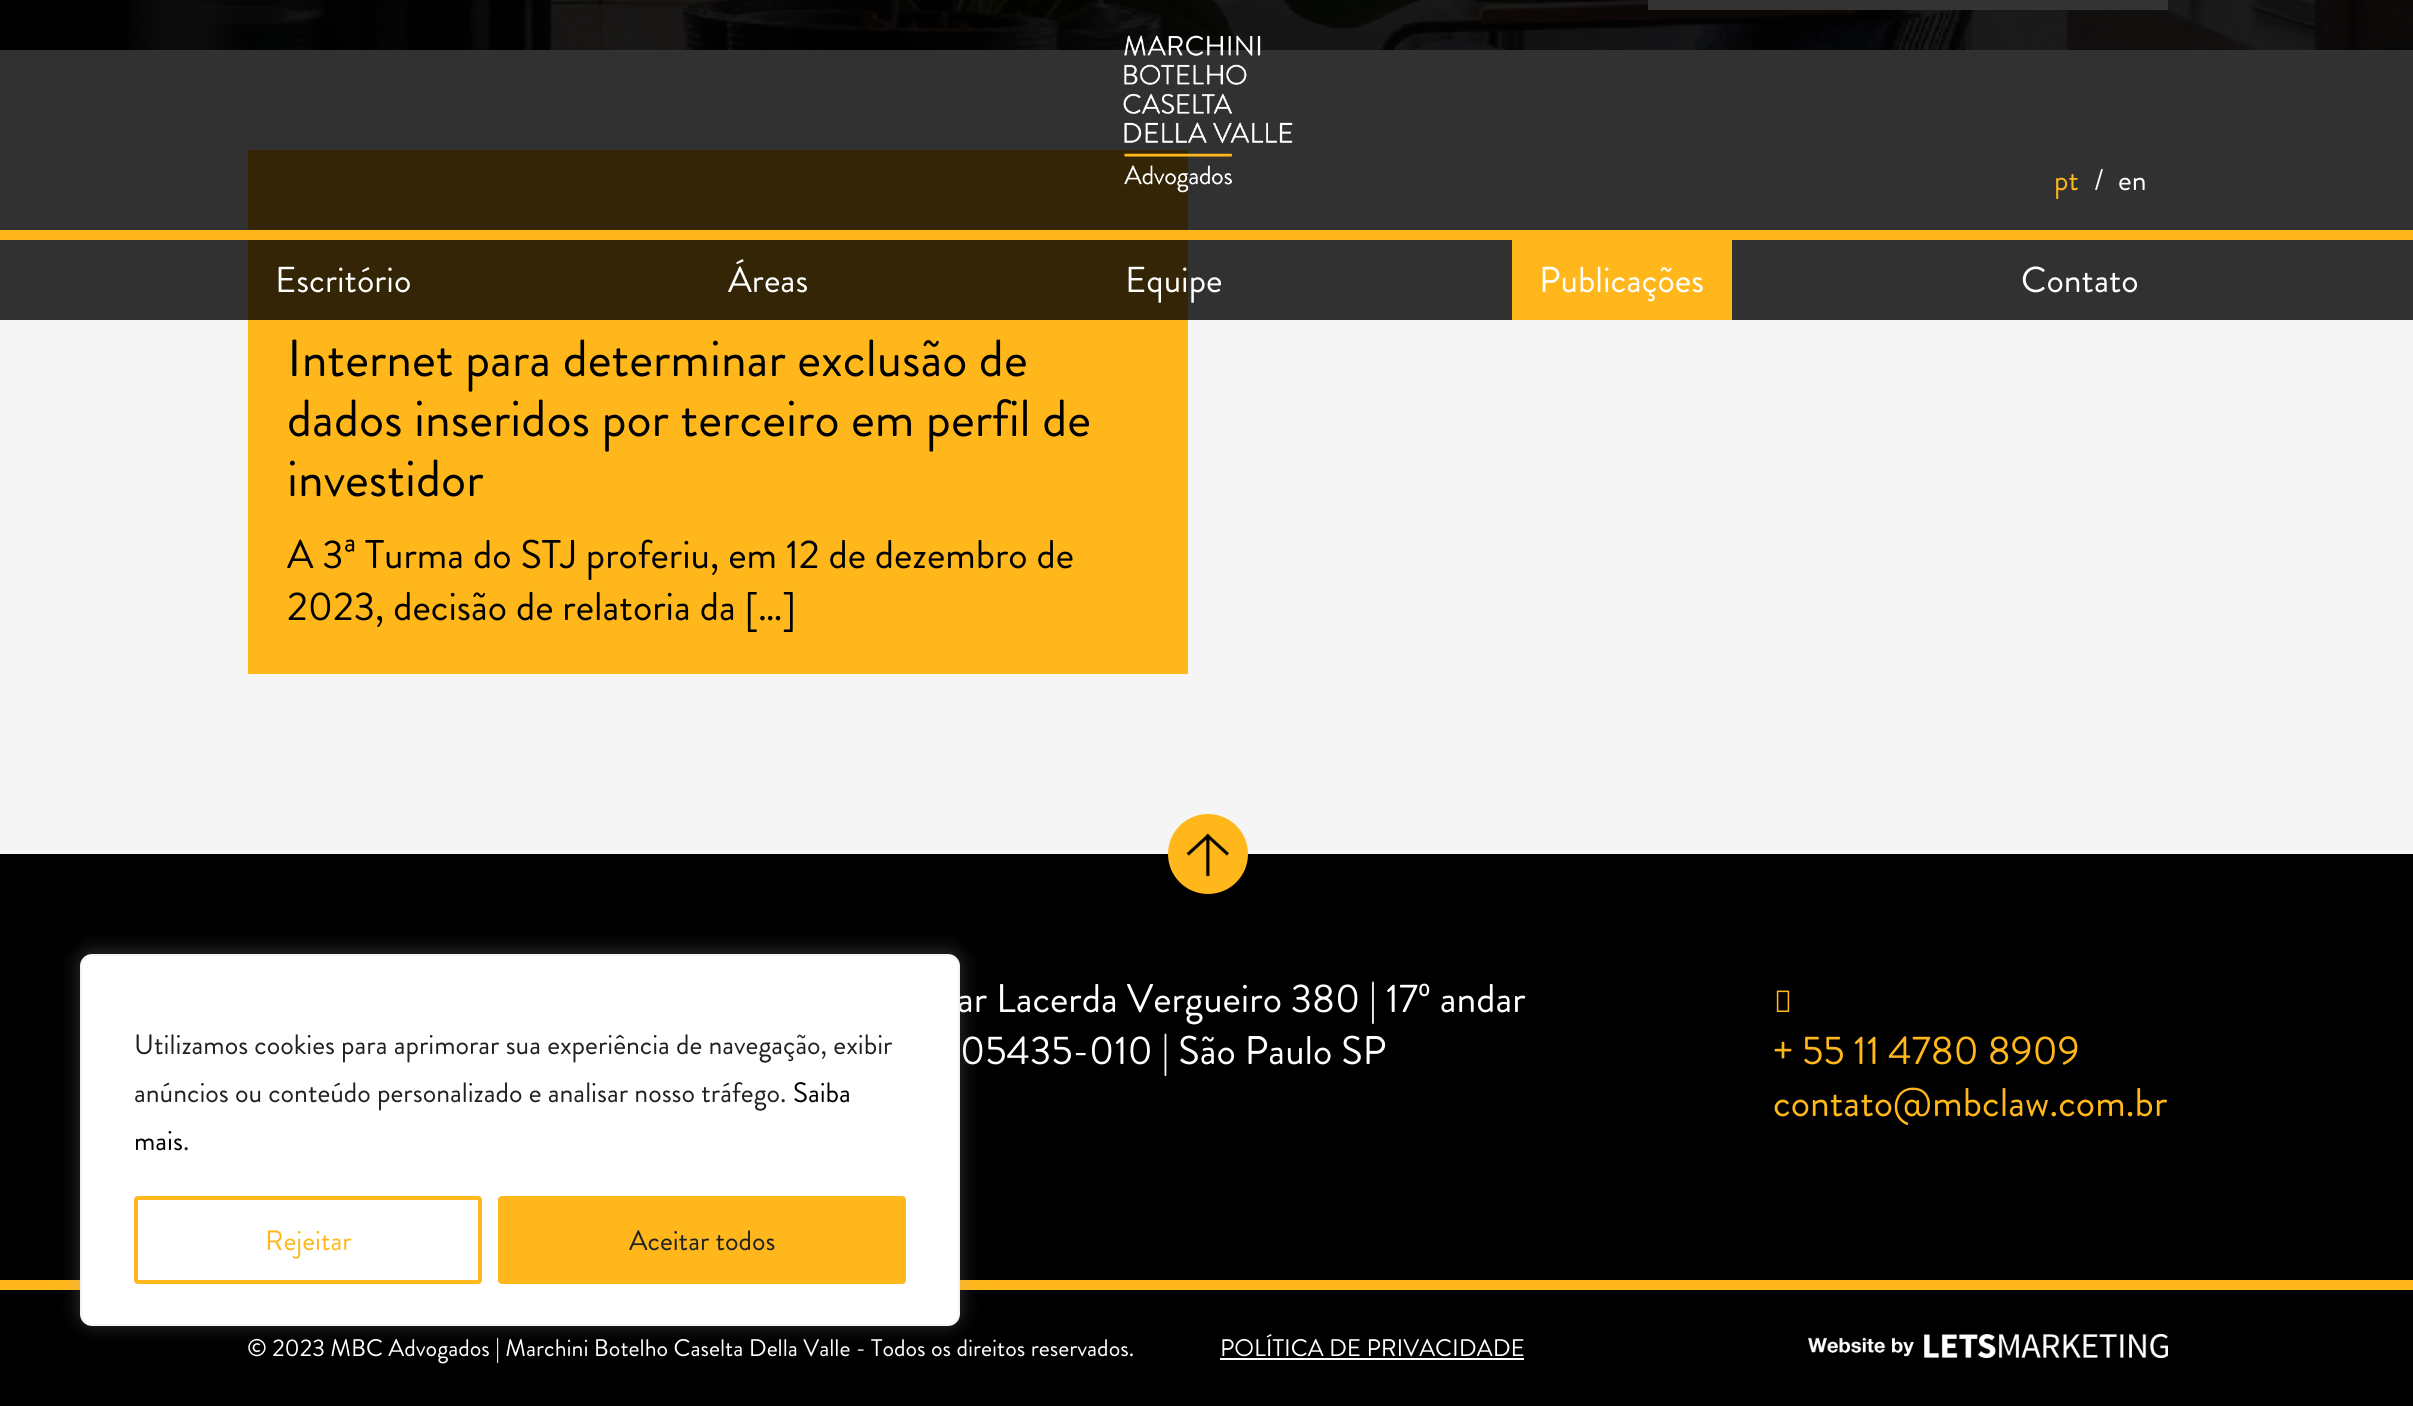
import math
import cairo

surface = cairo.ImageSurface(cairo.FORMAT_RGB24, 2413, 1406)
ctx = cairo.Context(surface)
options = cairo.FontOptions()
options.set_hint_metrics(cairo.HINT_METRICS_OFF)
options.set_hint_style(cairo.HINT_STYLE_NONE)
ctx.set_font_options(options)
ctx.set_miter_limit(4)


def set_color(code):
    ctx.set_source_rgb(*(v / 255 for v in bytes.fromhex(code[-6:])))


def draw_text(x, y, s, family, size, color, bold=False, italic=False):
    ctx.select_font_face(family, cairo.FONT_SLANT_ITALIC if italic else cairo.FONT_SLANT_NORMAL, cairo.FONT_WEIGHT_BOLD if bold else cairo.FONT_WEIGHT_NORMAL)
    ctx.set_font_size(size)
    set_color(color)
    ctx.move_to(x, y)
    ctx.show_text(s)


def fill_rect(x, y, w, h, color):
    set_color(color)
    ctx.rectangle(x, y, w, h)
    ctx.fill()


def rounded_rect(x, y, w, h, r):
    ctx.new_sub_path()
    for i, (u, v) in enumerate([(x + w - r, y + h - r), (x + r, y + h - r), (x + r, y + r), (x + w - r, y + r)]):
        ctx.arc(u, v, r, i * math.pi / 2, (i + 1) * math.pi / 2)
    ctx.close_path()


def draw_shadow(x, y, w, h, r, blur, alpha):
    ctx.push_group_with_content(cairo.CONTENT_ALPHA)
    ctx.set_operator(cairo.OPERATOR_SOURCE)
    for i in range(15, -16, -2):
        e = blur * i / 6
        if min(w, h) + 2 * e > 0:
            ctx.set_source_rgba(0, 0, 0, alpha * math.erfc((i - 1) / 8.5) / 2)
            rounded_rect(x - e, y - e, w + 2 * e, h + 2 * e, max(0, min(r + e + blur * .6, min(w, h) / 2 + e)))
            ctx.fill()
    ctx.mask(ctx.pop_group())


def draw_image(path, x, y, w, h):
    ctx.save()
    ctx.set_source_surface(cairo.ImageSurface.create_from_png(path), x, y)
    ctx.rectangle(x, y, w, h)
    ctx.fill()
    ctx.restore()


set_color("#000000")
ctx.paint()
draw_image("assets/img1.png", 0, 0, 2413, 50)
fill_rect(1648, 0, 520, 10, "#ffffff")
fill_rect(0, 50, 2413, 804, "#f5f5f5")
fill_rect(248, 150, 940, 524, "#ffb71b")
ctx.set_source_rgba(0, 0, 0, 0.8)
ctx.rectangle(0, 0, 2413, 320)
ctx.fill()
draw_image("assets/img2.png", 1123, 35, 170, 158)
draw_text(2054, 190, "pt", "Brandon Grotesque", 30, "#ffb71b")
draw_text(2094, 190, "/", "Brandon Grotesque", 30, "#ffffff")
draw_text(2118, 190, "en", "Brandon Grotesque", 30, "#ffffff")
draw_text(275, 292, "Escritório", "Brandon Grotesque", 36, "#ffffff")
draw_text(728, 292, "Áreas", "Brandon Grotesque", 36, "#ffffff")
draw_text(1125, 292, "Equipe", "Brandon Grotesque", 36, "#ffffff")
fill_rect(1512, 240, 220, 80, "#ffb71b")
draw_text(1539, 292, "Publicações", "Brandon Grotesque", 36, "#ffffff")
draw_text(2021, 292, "Contato", "Brandon Grotesque", 36, "#ffffff")
fill_rect(0, 230, 2413, 10, "#ffb71b")
draw_text(287, 376, "Internet para determinar exclusão de", "Brandon Grotesque", 52, "#000000")
draw_text(287, 436, "dados inseridos por terceiro em perfil de", "Brandon Grotesque", 52, "#000000")
draw_text(287, 496, "investidor", "Brandon Grotesque", 52, "#000000")
draw_text(287, 568, "A 3ª Turma do STJ proferiu, em 12 de dezembro de", "Brandon Grotesque", 40, "#000000")
draw_text(287, 620, "2023, decisão de relatoria da […]", "Brandon Grotesque", 40, "#000000")
set_color("#ffb71b")
ctx.new_path()
ctx.arc(1208, 854, 40, 0, 2 * math.pi)
ctx.fill()
draw_image("assets/img3.png", 1186, 833, 43, 44)
draw_text(957, 1012, "ar Lacerda Vergueiro 380 | 17º andar", "Brandon Grotesque", 40, "#ffffff")
draw_text(960, 1064, "05435-010 | São Paulo SP", "Brandon Grotesque", 40, "#ffffff")
draw_image("assets/img4.png", 1776, 990, 14, 22)
draw_text(1773, 1064, "+ 55 11 4780 8909", "Brandon Grotesque", 40, "#ffb71b")
draw_text(1773, 1116, "contato@mbclaw.com.br", "Brandon Grotesque", 40, "#ffb71b")
fill_rect(0, 1280, 2413, 10, "#ffb71b")
draw_text(247, 1356, "© 2023 MBC Advogados | Marchini Botelho Caselta Della Valle - Todos os direitos reservados.", "Brandon Grotesque", 24, "#ffffff")
draw_text(1220, 1356, "POLÍTICA DE PRIVACIDADE", "Brandon Grotesque", 24, "#ffffff")
fill_rect(1220, 1358, 304, 2, "#ffffff")
draw_image("assets/img5.png", 1808, 1334, 360, 24)
set_color("#acabab")
draw_shadow(80, 952, 880, 372, 12, 10, 0.3)
set_color("#ffffff")
rounded_rect(81, 955, 878, 370, 11)
ctx.fill_preserve()
set_color("#f4f4f4")
ctx.stroke()
draw_text(134, 1054, "Utilizamos cookies para aprimorar sua experiência de navegação, exibir", "Brandon Grotesque", 28, "#212121")
draw_text(134, 1102, "anúncios ou conteúdo personalizado e analisar nosso tráfego.", "Brandon Grotesque", 28, "#212121")
draw_text(793, 1102, "Saiba", "Brandon Grotesque", 28, "#000000")
draw_text(134, 1150, "mais", "Brandon Grotesque", 28, "#000000")
draw_text(183, 1150, ".", "Brandon Grotesque", 28, "#212121")
rounded_rect(136, 1198, 344, 84, 2)
set_color("#ffb71b")
ctx.set_line_width(4)
ctx.stroke()
draw_text(265, 1250, "Rejeitar", "Brandon Grotesque", 28, "#ffb71b")
rounded_rect(500, 1198, 404, 84, 2)
ctx.fill_preserve()
ctx.stroke()
draw_text(629, 1250, "Aceitar todos", "Brandon Grotesque", 28, "#212121")
surface.write_to_png("output.png")
